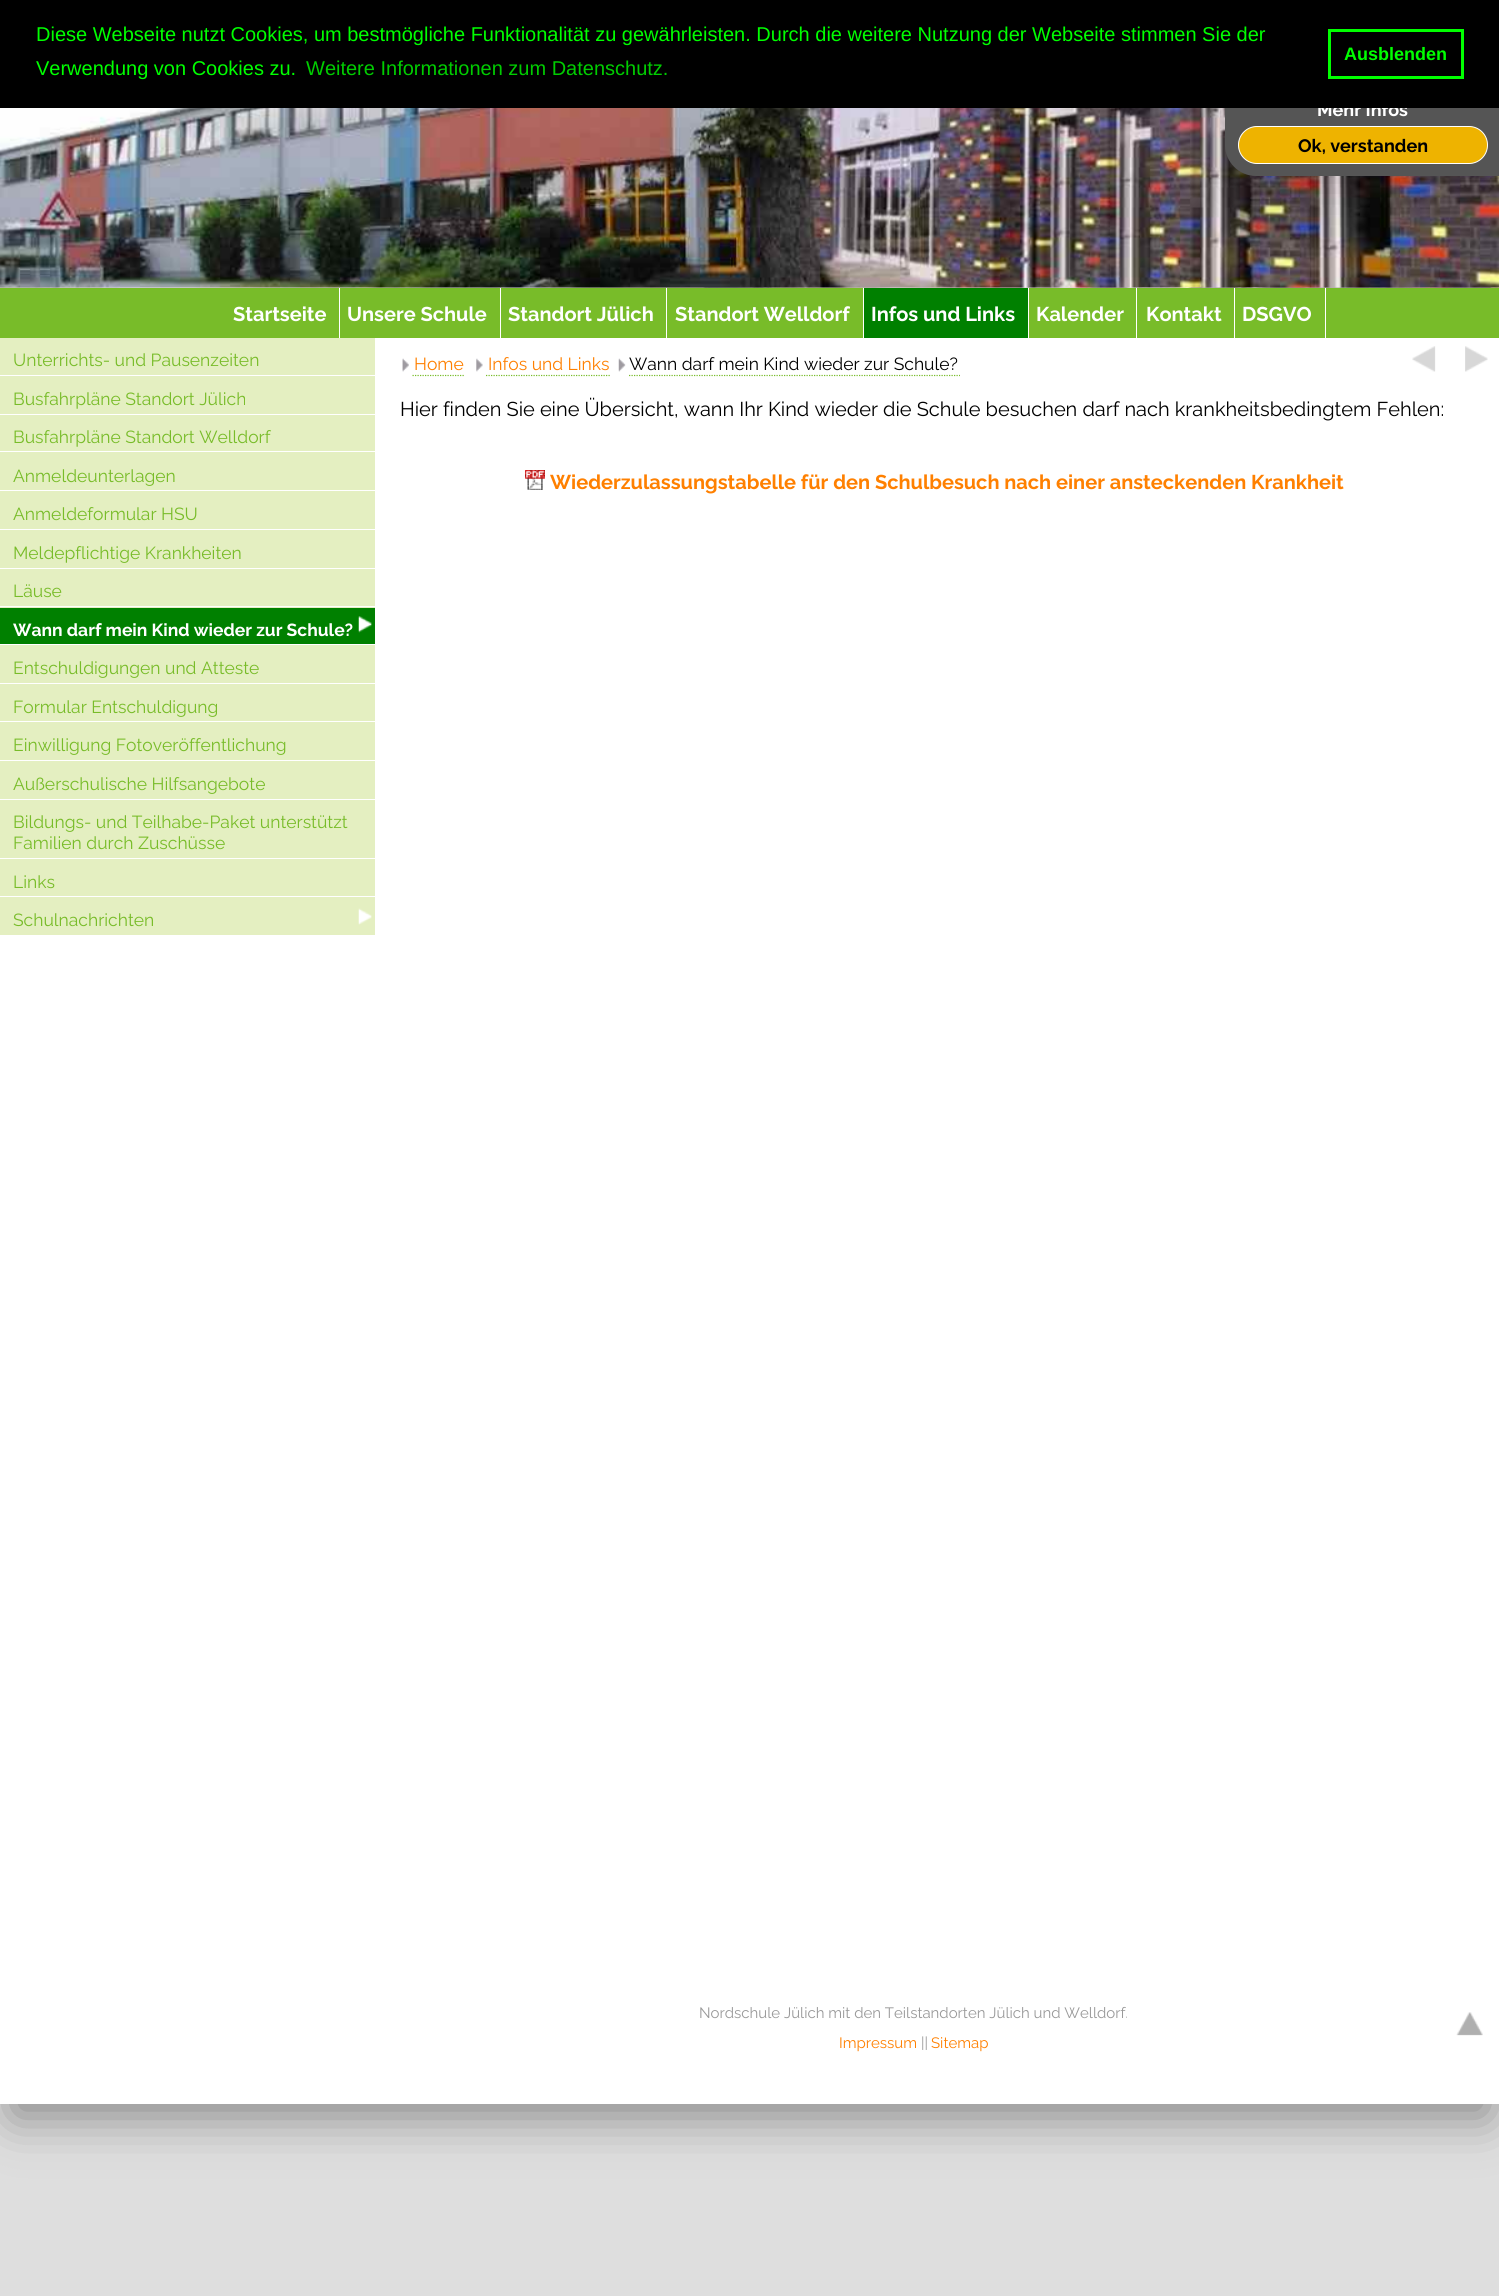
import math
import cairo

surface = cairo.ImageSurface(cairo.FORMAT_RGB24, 1499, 2296)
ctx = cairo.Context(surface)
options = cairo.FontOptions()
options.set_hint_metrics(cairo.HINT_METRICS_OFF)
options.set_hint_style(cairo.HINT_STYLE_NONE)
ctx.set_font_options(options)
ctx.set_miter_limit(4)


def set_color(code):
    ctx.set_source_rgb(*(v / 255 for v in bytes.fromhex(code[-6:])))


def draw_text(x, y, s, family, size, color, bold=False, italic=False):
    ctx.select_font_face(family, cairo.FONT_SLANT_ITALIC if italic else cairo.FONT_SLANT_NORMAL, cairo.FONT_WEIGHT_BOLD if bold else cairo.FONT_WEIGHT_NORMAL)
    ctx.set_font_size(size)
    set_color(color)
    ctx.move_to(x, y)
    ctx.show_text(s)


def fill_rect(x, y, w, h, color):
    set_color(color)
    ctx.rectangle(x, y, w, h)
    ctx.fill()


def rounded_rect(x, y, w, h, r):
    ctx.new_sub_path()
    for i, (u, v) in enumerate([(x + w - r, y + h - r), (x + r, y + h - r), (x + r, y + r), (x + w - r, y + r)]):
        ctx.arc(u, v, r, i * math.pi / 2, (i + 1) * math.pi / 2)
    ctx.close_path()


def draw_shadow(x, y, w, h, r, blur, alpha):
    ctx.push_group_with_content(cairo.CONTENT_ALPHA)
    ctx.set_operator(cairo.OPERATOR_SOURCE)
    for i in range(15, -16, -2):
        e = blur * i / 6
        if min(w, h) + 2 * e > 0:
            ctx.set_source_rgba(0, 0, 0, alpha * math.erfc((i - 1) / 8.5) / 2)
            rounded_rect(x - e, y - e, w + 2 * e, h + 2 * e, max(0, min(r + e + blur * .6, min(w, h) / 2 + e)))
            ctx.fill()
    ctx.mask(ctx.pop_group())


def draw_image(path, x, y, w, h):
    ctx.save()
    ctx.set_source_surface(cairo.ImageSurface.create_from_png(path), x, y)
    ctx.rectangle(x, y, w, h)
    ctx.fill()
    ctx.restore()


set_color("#dedede")
ctx.paint()
set_color("#000000")
draw_shadow(13, 75, 1475, 2041, 0, 25, 0.4)
fill_rect(0, 287, 1499, 1817, "#ffffff")
draw_image("assets/img1.png", 0, 287, 1499, 1)
draw_image("assets/img2.png", 0, 108, 1499, 180)
set_color("#000000")
draw_shadow(1225, 13, 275, 176, 31, 31, 0.2)
set_color("#555555")
ctx.new_path()
ctx.move_to(1225, 0)
ctx.line_to(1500, 0)
ctx.line_to(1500, 176)
ctx.line_to(1256, 176)
ctx.curve_to(1239, 176, 1225, 162, 1225, 145)
ctx.close_path()
ctx.fill()
draw_text(1317, 116, "Mehr Infos", "Raleway", 18, "#ffffff", bold=True)
fill_rect(0, 0, 1499, 108, "#000000")
draw_text(36, 41, "Diese Webseite nutzt Cookies, um bestmögliche Funktionalität zu gewährleisten. Durch die weitere Nutzung der Webseite stimmen Sie der", "Liberation Sans", 20, "#00ff00")
draw_text(36, 75, "Verwendung von Cookies zu.", "Liberation Sans", 20, "#00ff00")
draw_text(306, 75, "Weitere Informationen zum Datenschutz.", "Liberation Sans", 20, "#00cc00")
ctx.rectangle(1329.5, 30.5, 133, 47)
set_color("#00ff00")
ctx.set_line_width(3)
ctx.stroke()
draw_text(1344, 60, "Ausblenden", "Liberation Sans", 18, "#00ff00", bold=True)
set_color("#eeb300")
rounded_rect(1238.5, 126.5, 249, 37, 18.5)
ctx.fill_preserve()
set_color("#ffffff")
ctx.set_line_width(1)
ctx.stroke()
draw_text(1298, 152, "Ok, verstanden", "Raleway", 18, "#000000", bold=True)
fill_rect(0, 288, 1499, 50, "#78bc29")
fill_rect(339, 288, 1, 50, "#ffffff")
draw_text(233, 321, "Startseite", "Raleway", 20, "#ffffff", bold=True)
fill_rect(500, 288, 1, 50, "#ffffff")
draw_text(347, 321, "Unsere Schule", "Raleway", 20, "#ffffff", bold=True)
fill_rect(666, 288, 1, 50, "#ffffff")
draw_text(508, 321, "Standort Jülich", "Raleway", 20, "#ffffff", bold=True)
fill_rect(863, 288, 1, 50, "#ffffff")
draw_text(675, 321, "Standort Welldorf", "Raleway", 20, "#ffffff", bold=True)
fill_rect(864, 288, 164, 50, "#008000")
fill_rect(1028, 288, 1, 50, "#ffffff")
draw_text(871, 321, "Infos und Links", "Raleway", 20, "#ffffff", bold=True)
fill_rect(1136, 288, 1, 50, "#ffffff")
draw_text(1036, 321, "Kalender", "Raleway", 20, "#ffffff", bold=True)
fill_rect(1234, 288, 1, 50, "#ffffff")
draw_text(1146, 321, "Kontakt", "Raleway", 20, "#ffffff", bold=True)
fill_rect(1325, 288, 1, 50, "#ffffff")
draw_text(1242, 321, "DSGVO", "Raleway", 20, "#ffffff", bold=True)
fill_rect(0, 338, 375, 597, "#e4efc1")
fill_rect(0, 375, 375, 1, "#ffffff")
draw_text(13, 366, "Unterrichts- und Pausenzeiten", "Raleway", 17.5, "#78bc29")
fill_rect(0, 414, 375, 1, "#ffffff")
draw_text(13, 405, "Busfahrpläne Standort Jülich", "Raleway", 17.5, "#78bc29")
fill_rect(0, 451, 375, 1, "#ffffff")
draw_text(13, 443, "Busfahrpläne Standort Welldorf", "Raleway", 17.5, "#78bc29")
fill_rect(0, 490, 375, 1, "#ffffff")
draw_text(13, 482, "Anmeldeunterlagen", "Raleway", 17.5, "#78bc29")
fill_rect(0, 529, 375, 1, "#ffffff")
draw_text(13, 520, "Anmeldeformular HSU", "Raleway", 17.5, "#78bc29")
fill_rect(0, 568, 375, 1, "#ffffff")
draw_text(13, 559, "Meldepflichtige Krankheiten", "Raleway", 17.5, "#78bc29")
fill_rect(0, 606, 375, 1, "#ffffff")
draw_text(13, 597, "Läuse", "Raleway", 17.5, "#78bc29")
fill_rect(0, 608, 375, 36, "#008000")
draw_image("assets/img3.png", 358, 616, 14, 17)
fill_rect(0, 644, 375, 1, "#ffffff")
draw_text(13, 636, "Wann darf mein Kind wieder zur Schule?", "Raleway", 17.5, "#ffffff", bold=True)
fill_rect(0, 683, 375, 1, "#ffffff")
draw_text(13, 674, "Entschuldigungen und Atteste", "Raleway", 17.5, "#78bc29")
fill_rect(0, 721, 375, 1, "#ffffff")
draw_text(13, 713, "Formular Entschuldigung", "Raleway", 17.5, "#78bc29")
fill_rect(0, 760, 375, 1, "#ffffff")
draw_text(13, 751, "Einwilligung Fotoveröffentlichung", "Raleway", 17.5, "#78bc29")
fill_rect(0, 799, 375, 1, "#ffffff")
draw_text(13, 790, "Außerschulische Hilfsangebote", "Raleway", 17.5, "#78bc29")
fill_rect(0, 858, 375, 1, "#ffffff")
draw_text(13, 828, "Bildungs- und Teilhabe-Paket unterstützt", "Raleway", 17.5, "#78bc29")
draw_text(13, 849, "Familien durch Zuschüsse", "Raleway", 17.5, "#78bc29")
fill_rect(0, 896, 375, 1, "#ffffff")
draw_text(13, 888, "Links", "Raleway", 17.5, "#78bc29")
draw_image("assets/img4.png", 358, 908, 14, 17)
draw_text(13, 926, "Schulnachrichten", "Raleway", 17.5, "#78bc29")
draw_image("assets/img5.png", 402, 358, 7, 14)
draw_text(414, 370, "Home", "Raleway", 17.5, "#ff8000")
ctx.new_path()
ctx.move_to(412.5, 375.5)
ctx.line_to(465, 375.5)
set_color("#78bc29")
ctx.set_line_width(1.2)
ctx.set_dash([1.25, 1.25])
ctx.stroke()
draw_image("assets/img6.png", 476, 358, 7, 14)
draw_text(488, 370, "Infos und Links", "Raleway", 17.5, "#ff8000")
ctx.new_path()
ctx.move_to(486, 375.5)
ctx.line_to(611, 375.5)
set_color("#78bc29")
ctx.stroke()
draw_image("assets/img7.png", 618, 358, 8, 14)
draw_text(629, 370, "Wann darf mein Kind wieder zur Schule?", "Raleway", 17.5, "#000000")
ctx.new_path()
ctx.move_to(629, 375.5)
ctx.line_to(960, 375.5)
set_color("#78bc29")
ctx.stroke()
draw_image("assets/img8.png", 1412, 346, 24, 26)
draw_image("assets/img9.png", 1465, 346, 23, 26)
draw_text(400, 416, "Hier finden Sie eine Übersicht, wann Ihr Kind wieder die Schule besuchen darf nach krankheitsbedingtem Fehlen:", "Raleway", 20, "#000000")
draw_image("assets/img10.png", 525, 470, 20, 20)
draw_text(550, 489, "Wiederzulassungstabelle für den Schulbesuch nach einer ansteckenden Krankheit", "Raleway", 20, "#ff8000", bold=True)
draw_text(699, 2018, "Nordschule Jülich mit den Teilstandorten Jülich und Welldorf.", "Raleway", 15, "#999999")
draw_text(839, 2048, "Impressum", "Raleway", 15, "#ff8000")
draw_text(921, 2048, "||", "Raleway", 15, "#999999")
draw_text(931, 2048, "Sitemap", "Raleway", 15, "#ff8000")
draw_image("assets/img11.png", 1456, 2012, 27, 24)
surface.write_to_png("output.png")
